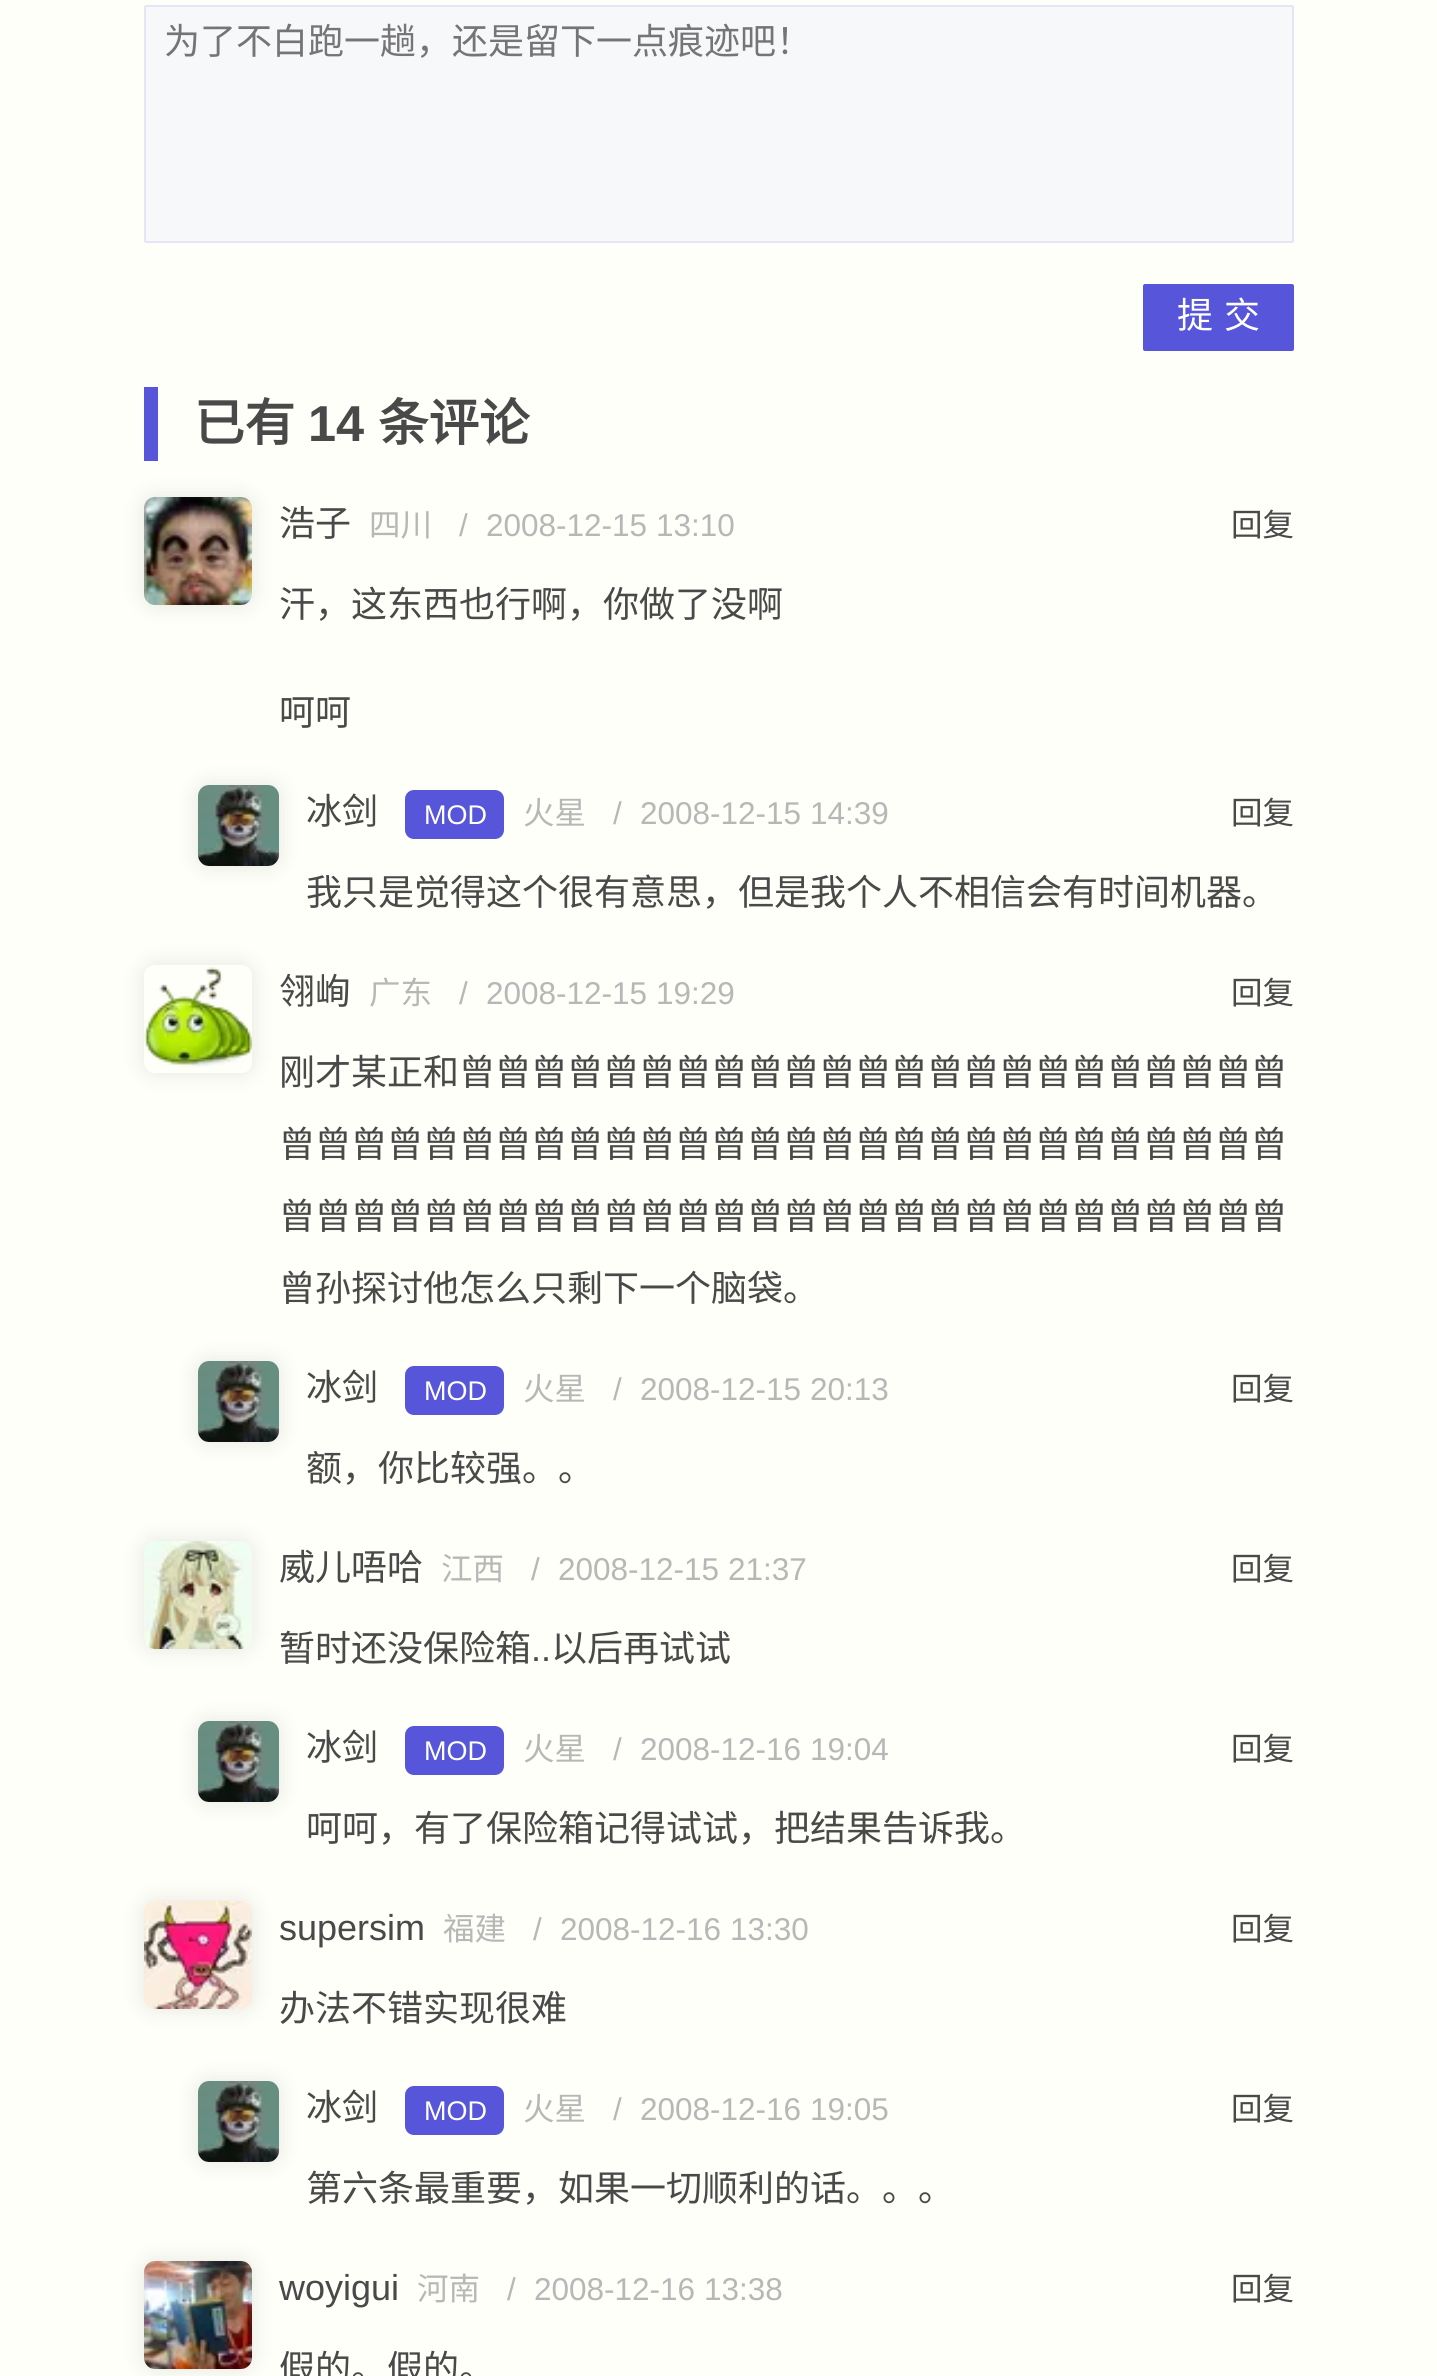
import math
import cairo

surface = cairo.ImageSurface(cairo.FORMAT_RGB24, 1437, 2376)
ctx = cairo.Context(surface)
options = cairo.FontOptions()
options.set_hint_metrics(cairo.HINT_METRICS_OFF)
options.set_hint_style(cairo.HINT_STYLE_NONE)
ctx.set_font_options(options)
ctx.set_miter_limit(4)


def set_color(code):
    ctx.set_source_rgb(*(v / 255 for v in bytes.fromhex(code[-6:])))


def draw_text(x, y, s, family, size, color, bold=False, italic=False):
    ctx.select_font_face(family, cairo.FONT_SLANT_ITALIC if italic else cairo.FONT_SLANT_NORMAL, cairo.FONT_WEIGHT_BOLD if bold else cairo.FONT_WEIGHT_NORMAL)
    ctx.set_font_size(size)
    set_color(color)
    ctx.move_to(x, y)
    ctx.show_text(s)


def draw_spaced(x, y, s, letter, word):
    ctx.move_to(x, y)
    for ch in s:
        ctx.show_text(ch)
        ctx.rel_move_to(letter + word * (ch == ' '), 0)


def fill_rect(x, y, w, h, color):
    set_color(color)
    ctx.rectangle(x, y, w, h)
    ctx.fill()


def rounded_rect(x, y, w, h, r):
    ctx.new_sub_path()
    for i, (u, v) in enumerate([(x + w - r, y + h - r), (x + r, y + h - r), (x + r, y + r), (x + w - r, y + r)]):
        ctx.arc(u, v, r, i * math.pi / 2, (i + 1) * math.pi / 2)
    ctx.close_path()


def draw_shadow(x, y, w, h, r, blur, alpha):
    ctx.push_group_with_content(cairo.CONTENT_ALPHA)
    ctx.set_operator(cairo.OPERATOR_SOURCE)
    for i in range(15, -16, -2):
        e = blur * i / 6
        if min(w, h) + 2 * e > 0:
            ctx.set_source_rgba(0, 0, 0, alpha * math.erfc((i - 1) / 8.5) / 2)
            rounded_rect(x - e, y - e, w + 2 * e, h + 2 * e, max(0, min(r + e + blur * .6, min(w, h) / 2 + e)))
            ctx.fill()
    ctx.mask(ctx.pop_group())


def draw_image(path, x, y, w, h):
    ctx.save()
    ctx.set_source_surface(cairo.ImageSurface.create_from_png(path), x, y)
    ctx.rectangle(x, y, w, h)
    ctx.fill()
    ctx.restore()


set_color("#fffff9")
ctx.paint()
set_color("#f7f8f9")
rounded_rect(145, 6, 1148, 236, 1)
ctx.fill_preserve()
set_color("#e5e5f9")
ctx.stroke()
draw_text(164, 54, "为了不白跑一趟，还是留下一点痕迹吧！", "Noto Sans CJK SC", 36, "#757575")
set_color("#5755d9")
rounded_rect(1143, 284, 151, 67, 2)
ctx.fill()
set_color("#ffffff")
draw_spaced(1177, 328, "提交", 11, 0)
fill_rect(144, 387, 14, 74, "#5755d9")
draw_text(194, 441, "已有", "Noto Sans CJK SC", 50.5, "#494949", bold=True)
draw_text(308, 441, "14", "Liberation Sans", 50.5, "#494949", bold=True)
draw_text(378, 441, "条评论", "Noto Sans CJK SC", 50.5, "#494949", bold=True)
set_color("#000000")
draw_shadow(144, 497, 108, 108, 11, 11, 0.1)
draw_image("assets/img1.png", 144, 497, 108, 108)
draw_text(279, 536, "浩子", "Noto Sans CJK SC", 36, "#494949")
draw_text(369, 536, "四川", "Noto Sans CJK SC", 31.5, "#b7b7b7")
draw_text(459, 536, "/", "Liberation Sans", 31.5, "#b7b7b7")
draw_text(486, 536, "2008-12-15 13:10", "Liberation Sans", 31.5, "#b7b7b7")
draw_text(1231, 536, "回复", "Noto Sans CJK SC", 31.5, "#494949")
draw_text(279, 617, "汗，这东西也行啊，你做了没啊", "Noto Sans CJK SC", 36, "#494949")
draw_text(279, 725, "呵呵", "Noto Sans CJK SC", 36, "#494949")
set_color("#000000")
draw_shadow(198, 785, 81, 81, 11, 11, 0.1)
draw_image("assets/img2.png", 198, 785, 81, 81)
draw_text(306, 824, "冰剑", "Noto Sans CJK SC", 36, "#494949")
set_color("#5755d9")
rounded_rect(405, 790, 99, 49, 9)
ctx.fill()
draw_text(424, 824, "MOD", "Liberation Sans", 27, "#fffff9")
draw_text(523, 824, "火星", "Noto Sans CJK SC", 31.5, "#b7b7b7")
draw_text(613, 824, "/", "Liberation Sans", 31.5, "#b7b7b7")
draw_text(640, 824, "2008-12-15 14:39", "Liberation Sans", 31.5, "#b7b7b7")
draw_text(1231, 824, "回复", "Noto Sans CJK SC", 31.5, "#494949")
draw_text(306, 905, "我只是觉得这个很有意思，但是我个人不相信会有时间机器。", "Noto Sans CJK SC", 36, "#494949")
ctx.save()
ctx.set_fill_rule(cairo.FILL_RULE_EVEN_ODD)
ctx.new_path()
ctx.move_to(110, 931)
ctx.line_to(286, 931)
ctx.line_to(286, 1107)
ctx.line_to(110, 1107)
ctx.close_path()
ctx.move_to(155, 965)
ctx.line_to(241, 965)
ctx.curve_to(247, 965, 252, 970, 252, 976)
ctx.line_to(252, 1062)
ctx.curve_to(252, 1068, 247, 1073, 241, 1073)
ctx.line_to(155, 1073)
ctx.curve_to(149, 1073, 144, 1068, 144, 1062)
ctx.line_to(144, 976)
ctx.curve_to(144, 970, 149, 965, 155, 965)
ctx.close_path()
ctx.clip()
set_color("#000000")
draw_shadow(144, 965, 108, 108, 11, 11, 0.1)
ctx.restore()
draw_image("assets/img3.png", 144, 967, 108, 100)
draw_text(279, 1004, "翎峋", "Noto Sans CJK SC", 36, "#494949")
draw_text(369, 1004, "广东", "Noto Sans CJK SC", 31.5, "#b7b7b7")
draw_text(459, 1004, "/", "Liberation Sans", 31.5, "#b7b7b7")
draw_text(486, 1004, "2008-12-15 19:29", "Liberation Sans", 31.5, "#b7b7b7")
draw_text(1231, 1004, "回复", "Noto Sans CJK SC", 31.5, "#494949")
draw_text(279, 1085, "刚才某正和曾曾曾曾曾曾曾曾曾曾曾曾曾曾曾曾曾曾曾曾曾曾曾", "Noto Sans CJK SC", 36, "#494949")
draw_text(279, 1157, "曾曾曾曾曾曾曾曾曾曾曾曾曾曾曾曾曾曾曾曾曾曾曾曾曾曾曾曾", "Noto Sans CJK SC", 36, "#494949")
draw_text(279, 1229, "曾曾曾曾曾曾曾曾曾曾曾曾曾曾曾曾曾曾曾曾曾曾曾曾曾曾曾曾", "Noto Sans CJK SC", 36, "#494949")
draw_text(279, 1301, "曾孙探讨他怎么只剩下一个脑袋。", "Noto Sans CJK SC", 36, "#494949")
set_color("#000000")
draw_shadow(198, 1361, 81, 81, 11, 11, 0.1)
draw_image("assets/img4.png", 198, 1361, 81, 81)
draw_text(306, 1400, "冰剑", "Noto Sans CJK SC", 36, "#494949")
set_color("#5755d9")
rounded_rect(405, 1366, 99, 49, 9)
ctx.fill()
draw_text(424, 1400, "MOD", "Liberation Sans", 27, "#fffff9")
draw_text(523, 1400, "火星", "Noto Sans CJK SC", 31.5, "#b7b7b7")
draw_text(613, 1400, "/", "Liberation Sans", 31.5, "#b7b7b7")
draw_text(640, 1400, "2008-12-15 20:13", "Liberation Sans", 31.5, "#b7b7b7")
draw_text(1231, 1400, "回复", "Noto Sans CJK SC", 31.5, "#494949")
draw_text(306, 1481, "额，你比较强。。", "Noto Sans CJK SC", 36, "#494949")
set_color("#000000")
draw_shadow(144, 1541, 108, 108, 11, 11, 0.1)
draw_image("assets/img5.png", 144, 1541, 108, 108)
draw_text(279, 1580, "威儿唔哈", "Noto Sans CJK SC", 36, "#494949")
draw_text(441, 1580, "江西", "Noto Sans CJK SC", 31.5, "#b7b7b7")
draw_text(531, 1580, "/", "Liberation Sans", 31.5, "#b7b7b7")
draw_text(558, 1580, "2008-12-15 21:37", "Liberation Sans", 31.5, "#b7b7b7")
draw_text(1231, 1580, "回复", "Noto Sans CJK SC", 31.5, "#494949")
draw_text(279, 1661, "暂时还没保险箱", "Noto Sans CJK SC", 36, "#494949")
draw_text(531, 1661, "..", "Liberation Sans", 36, "#494949")
draw_text(551, 1661, "以后再试试", "Noto Sans CJK SC", 36, "#494949")
set_color("#000000")
draw_shadow(198, 1721, 81, 81, 11, 11, 0.1)
draw_image("assets/img4.png", 198, 1721, 81, 81)
draw_text(306, 1760, "冰剑", "Noto Sans CJK SC", 36, "#494949")
set_color("#5755d9")
rounded_rect(405, 1726, 99, 49, 9)
ctx.fill()
draw_text(424, 1760, "MOD", "Liberation Sans", 27, "#fffff9")
draw_text(523, 1760, "火星", "Noto Sans CJK SC", 31.5, "#b7b7b7")
draw_text(613, 1760, "/", "Liberation Sans", 31.5, "#b7b7b7")
draw_text(640, 1760, "2008-12-16 19:04", "Liberation Sans", 31.5, "#b7b7b7")
draw_text(1231, 1760, "回复", "Noto Sans CJK SC", 31.5, "#494949")
draw_text(306, 1841, "呵呵，有了保险箱记得试试，把结果告诉我。", "Noto Sans CJK SC", 36, "#494949")
set_color("#000000")
draw_shadow(144, 1901, 108, 108, 11, 11, 0.1)
draw_image("assets/img6.png", 144, 1901, 108, 108)
draw_text(279, 1940, "supersim", "Liberation Sans", 36, "#494949")
draw_text(443, 1940, "福建", "Noto Sans CJK SC", 31.5, "#b7b7b7")
draw_text(533, 1940, "/", "Liberation Sans", 31.5, "#b7b7b7")
draw_text(560, 1940, "2008-12-16 13:30", "Liberation Sans", 31.5, "#b7b7b7")
draw_text(1231, 1940, "回复", "Noto Sans CJK SC", 31.5, "#494949")
draw_text(279, 2021, "办法不错实现很难", "Noto Sans CJK SC", 36, "#494949")
set_color("#000000")
draw_shadow(198, 2081, 81, 81, 11, 11, 0.1)
draw_image("assets/img4.png", 198, 2081, 81, 81)
draw_text(306, 2120, "冰剑", "Noto Sans CJK SC", 36, "#494949")
set_color("#5755d9")
rounded_rect(405, 2086, 99, 49, 9)
ctx.fill()
draw_text(424, 2120, "MOD", "Liberation Sans", 27, "#fffff9")
draw_text(523, 2120, "火星", "Noto Sans CJK SC", 31.5, "#b7b7b7")
draw_text(613, 2120, "/", "Liberation Sans", 31.5, "#b7b7b7")
draw_text(640, 2120, "2008-12-16 19:05", "Liberation Sans", 31.5, "#b7b7b7")
draw_text(1231, 2120, "回复", "Noto Sans CJK SC", 31.5, "#494949")
draw_text(306, 2201, "第六条最重要，如果一切顺利的话。。。", "Noto Sans CJK SC", 36, "#494949")
set_color("#000000")
draw_shadow(144, 2261, 108, 108, 11, 11, 0.1)
draw_image("assets/img7.png", 144, 2261, 108, 108)
draw_text(279, 2300, "woyigui", "Liberation Sans", 36, "#494949")
draw_text(417, 2300, "河南", "Noto Sans CJK SC", 31.5, "#b7b7b7")
draw_text(507, 2300, "/", "Liberation Sans", 31.5, "#b7b7b7")
draw_text(534, 2300, "2008-12-16 13:38", "Liberation Sans", 31.5, "#b7b7b7")
draw_text(1231, 2300, "回复", "Noto Sans CJK SC", 31.5, "#494949")
draw_text(279, 2381, "假的。假的。", "Noto Sans CJK SC", 36, "#494949")
surface.write_to_png("output.png")
